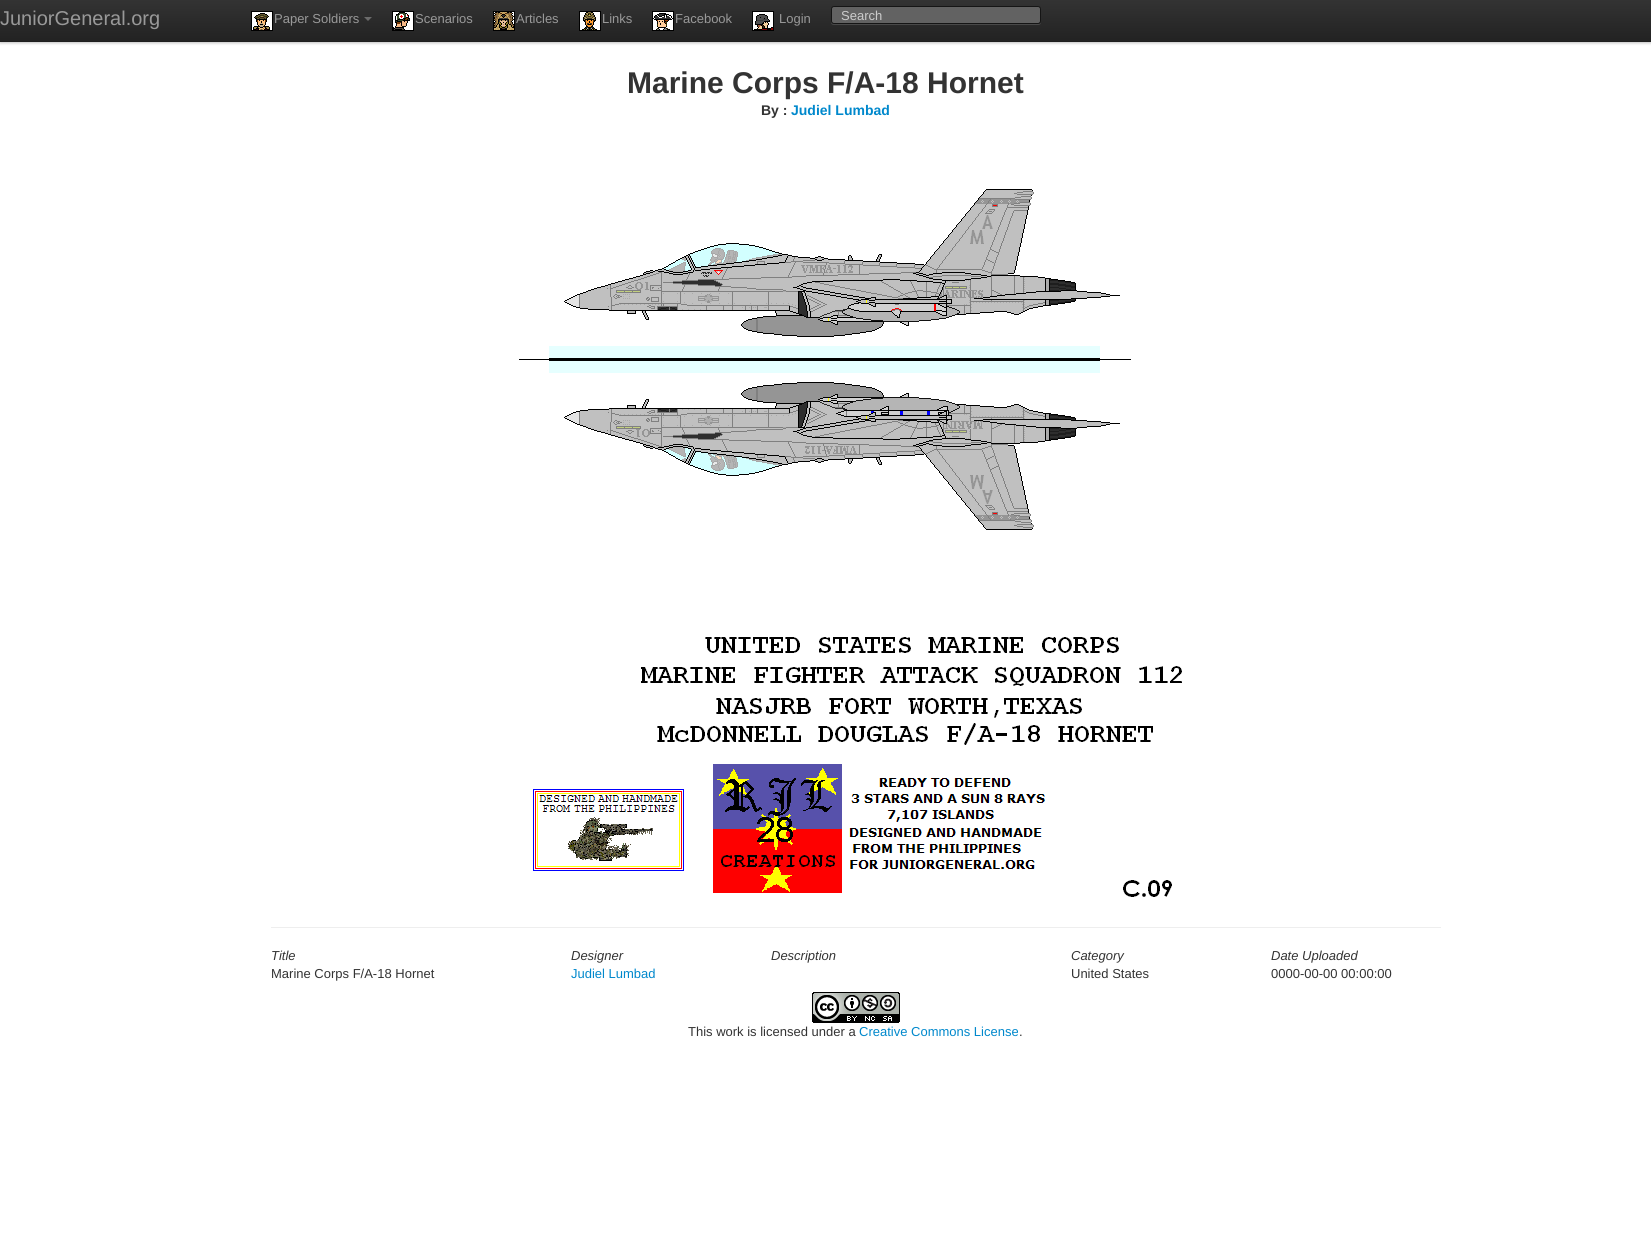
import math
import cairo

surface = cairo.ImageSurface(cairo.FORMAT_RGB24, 1651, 1256)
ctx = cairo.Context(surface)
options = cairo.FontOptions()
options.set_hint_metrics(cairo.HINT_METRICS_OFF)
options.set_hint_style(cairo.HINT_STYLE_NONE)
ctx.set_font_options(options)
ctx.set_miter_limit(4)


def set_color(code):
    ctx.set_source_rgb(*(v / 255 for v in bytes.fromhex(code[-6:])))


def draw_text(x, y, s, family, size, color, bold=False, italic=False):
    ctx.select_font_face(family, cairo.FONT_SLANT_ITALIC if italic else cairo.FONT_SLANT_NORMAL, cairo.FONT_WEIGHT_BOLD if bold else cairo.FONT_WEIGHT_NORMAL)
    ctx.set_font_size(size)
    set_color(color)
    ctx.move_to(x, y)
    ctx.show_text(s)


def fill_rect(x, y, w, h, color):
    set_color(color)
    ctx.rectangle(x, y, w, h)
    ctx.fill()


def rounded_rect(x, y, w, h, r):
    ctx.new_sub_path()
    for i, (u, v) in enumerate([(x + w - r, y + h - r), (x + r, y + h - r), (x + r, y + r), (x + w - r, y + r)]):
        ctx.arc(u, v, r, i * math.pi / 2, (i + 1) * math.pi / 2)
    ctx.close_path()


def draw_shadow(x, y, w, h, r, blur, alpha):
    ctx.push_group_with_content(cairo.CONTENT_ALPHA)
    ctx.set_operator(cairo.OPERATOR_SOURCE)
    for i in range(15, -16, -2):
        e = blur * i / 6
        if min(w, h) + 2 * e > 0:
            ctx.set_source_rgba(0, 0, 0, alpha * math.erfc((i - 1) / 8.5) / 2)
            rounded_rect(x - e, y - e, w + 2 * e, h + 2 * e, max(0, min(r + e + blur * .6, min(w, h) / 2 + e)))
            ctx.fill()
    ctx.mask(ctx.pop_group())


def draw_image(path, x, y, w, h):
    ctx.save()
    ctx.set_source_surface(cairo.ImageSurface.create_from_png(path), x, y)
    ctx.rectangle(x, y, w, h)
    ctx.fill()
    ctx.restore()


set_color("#ffffff")
ctx.paint()
set_color("#000000")
draw_shadow(0, 1, 1651, 42, 0, 1.5, 0.25)
gradient = cairo.LinearGradient(826, 0, 826, 42)
gradient.add_color_stop_rgba(0, 0.2, 0.2, 0.2, 1)
gradient.add_color_stop_rgba(1, 0.133, 0.133, 0.133, 1)
ctx.set_source(gradient)
ctx.rectangle(0, 0, 1651, 41)
ctx.fill()
fill_rect(0, 41, 1651, 1, "#1f1f1f")
draw_text(0, 25, "JuniorGeneral.org", "Liberation Sans", 20, "#999999")
draw_image("assets/img1.png", 251, 11, 22, 20)
draw_text(274, 23, "Paper Soldiers", "Liberation Sans", 13, "#999999")
set_color("#6b6b6b")
ctx.new_path()
ctx.move_to(364, 17)
ctx.line_to(372, 17)
ctx.line_to(368, 21)
ctx.close_path()
ctx.fill()
draw_image("assets/img2.png", 392, 11, 22, 20)
draw_text(415, 23, "Scenarios", "Liberation Sans", 13, "#999999")
draw_image("assets/img3.png", 493, 11, 22, 20)
draw_text(516, 23, "Articles", "Liberation Sans", 13, "#999999")
draw_image("assets/img4.png", 579, 11, 22, 20)
draw_text(602, 23, "Links", "Liberation Sans", 13, "#999999")
draw_image("assets/img5.png", 652, 11, 22, 20)
draw_text(675, 23, "Facebook", "Liberation Sans", 13, "#999999")
draw_image("assets/img6.png", 752, 11, 22, 20)
draw_text(779, 23, "Login", "Liberation Sans", 13, "#999999")
set_color("#494949")
ctx.new_path()
ctx.move_to(831, 21)
ctx.line_to(831, 22)
ctx.curve_to(831, 24, 832, 25, 834, 25)
ctx.line_to(1038, 25)
ctx.curve_to(1040, 25, 1041, 24, 1041, 22)
ctx.line_to(1041, 21)
ctx.curve_to(1041, 23, 1040, 24, 1038, 24)
ctx.line_to(834, 24)
ctx.line_to(832, 23)
ctx.close_path()
ctx.fill()
set_color("#626262")
rounded_rect(831.5, 6.5, 209, 17, 2.5)
ctx.fill_preserve()
set_color("#151515")
ctx.set_line_width(1)
ctx.stroke()
draw_text(841, 20, "Search", "Liberation Sans", 13, "#cccccc")
draw_text(627, 93, "Marine Corps F/A-18 Hornet", "Liberation Sans", 30, "#333333", bold=True)
draw_text(761, 115, "By :", "Liberation Sans", 14, "#333333", bold=True)
draw_text(791, 115, "Judiel Lumbad", "Liberation Sans", 14, "#0088cc", bold=True)
draw_image("assets/img7.png", 519, 189, 663, 708)
fill_rect(271, 927, 1170, 1, "#eeeeee")
draw_text(271, 960, "Title", "Liberation Sans", 13, "#333333", italic=True)
draw_text(271, 978, "Marine Corps F/A-18 Hornet", "Liberation Sans", 13, "#333333")
draw_text(571, 960, "Designer", "Liberation Sans", 13, "#333333", italic=True)
draw_text(571, 978, "Judiel Lumbad", "Liberation Sans", 13, "#0088cc")
draw_text(771, 960, "Description", "Liberation Sans", 13, "#333333", italic=True)
draw_text(1071, 960, "Category", "Liberation Sans", 13, "#333333", italic=True)
draw_text(1071, 978, "United States", "Liberation Sans", 13, "#333333")
draw_text(1271, 960, "Date Uploaded", "Liberation Sans", 13, "#333333", italic=True)
draw_text(1271, 978, "0000-00-00 00:00:00", "Liberation Sans", 13, "#333333")
draw_image("assets/img8.png", 812, 992, 88, 31)
draw_text(688, 1036, "This work is licensed under a", "Liberation Sans", 13, "#333333")
draw_text(859, 1036, "Creative Commons License", "Liberation Sans", 13, "#0088cc")
draw_text(1019, 1036, ".", "Liberation Sans", 13, "#333333")
surface.write_to_png("output.png")
